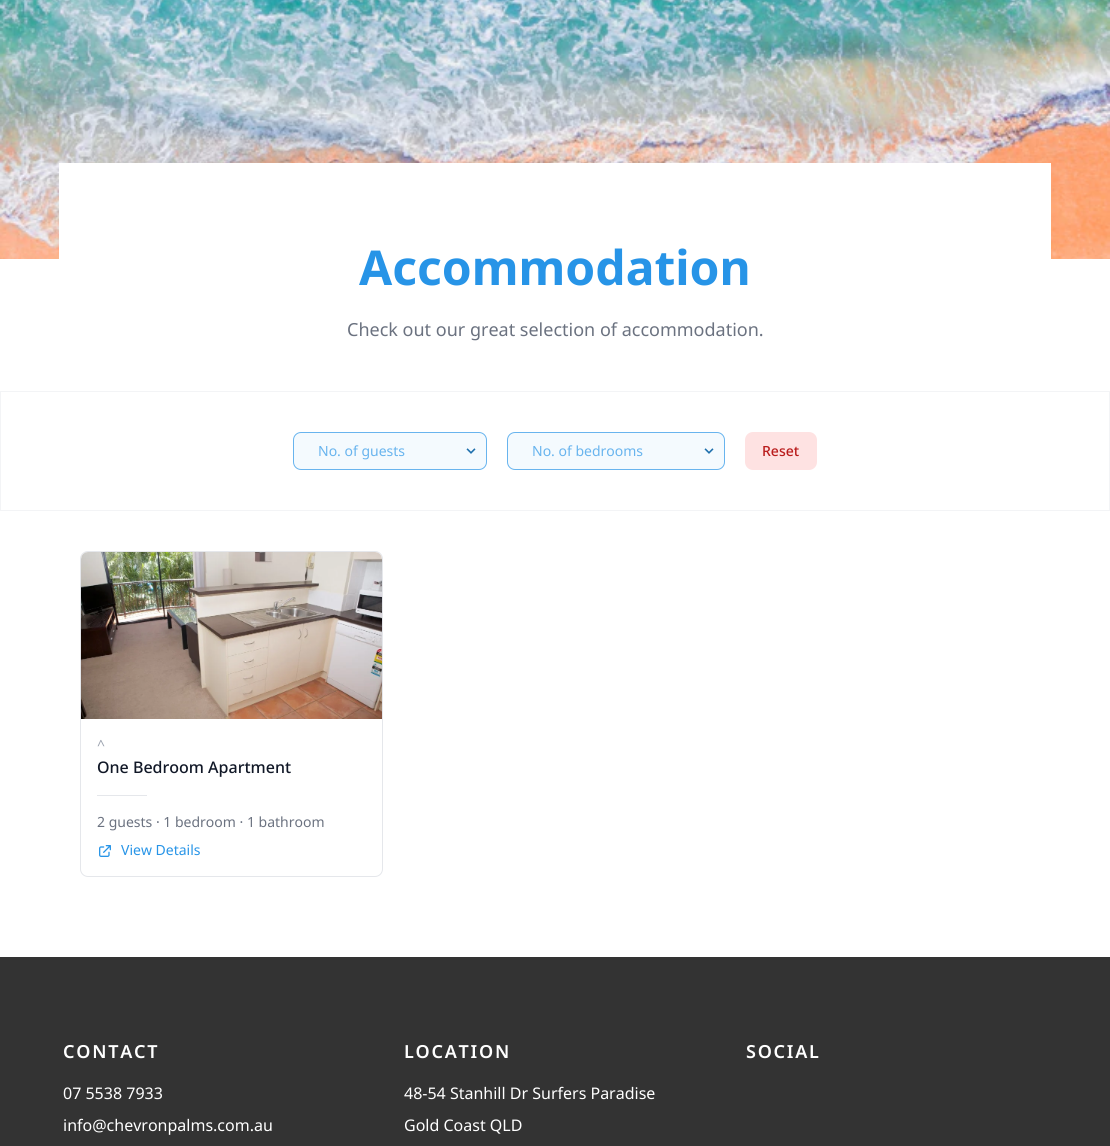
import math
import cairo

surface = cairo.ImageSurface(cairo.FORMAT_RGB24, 1110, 1146)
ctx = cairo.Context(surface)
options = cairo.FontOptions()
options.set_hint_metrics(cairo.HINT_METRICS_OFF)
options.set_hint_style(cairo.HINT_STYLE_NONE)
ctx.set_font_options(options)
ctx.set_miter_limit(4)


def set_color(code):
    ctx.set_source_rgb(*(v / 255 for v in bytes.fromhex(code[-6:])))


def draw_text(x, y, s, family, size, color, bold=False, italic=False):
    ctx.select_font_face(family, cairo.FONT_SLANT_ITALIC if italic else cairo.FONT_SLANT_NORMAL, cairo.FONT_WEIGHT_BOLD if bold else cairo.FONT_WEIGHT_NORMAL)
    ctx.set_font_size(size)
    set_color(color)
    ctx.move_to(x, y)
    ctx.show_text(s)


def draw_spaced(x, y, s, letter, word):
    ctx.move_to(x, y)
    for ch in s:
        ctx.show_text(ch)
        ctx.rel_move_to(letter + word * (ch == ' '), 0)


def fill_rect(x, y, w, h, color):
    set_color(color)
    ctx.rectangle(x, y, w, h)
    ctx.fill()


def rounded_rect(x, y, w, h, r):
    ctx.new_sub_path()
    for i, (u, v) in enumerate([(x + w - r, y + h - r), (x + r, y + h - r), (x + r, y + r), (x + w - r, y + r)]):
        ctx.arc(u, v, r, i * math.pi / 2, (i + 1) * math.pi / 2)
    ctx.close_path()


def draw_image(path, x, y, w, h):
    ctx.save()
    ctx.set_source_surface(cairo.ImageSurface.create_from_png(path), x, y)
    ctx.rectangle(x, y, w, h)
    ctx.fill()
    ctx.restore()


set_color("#ffffff")
ctx.paint()
draw_image("assets/img1.png", 0, 0, 1110, 259)
fill_rect(59, 163, 992, 96, "#ffffff")
draw_text(359, 285, "Accommodation", "Noto Sans", 48, "#2794e7", bold=True)
draw_text(347, 336, "Check out our great selection of accommodation.", "Noto Sans", 18, "#6b7280")
ctx.rectangle(0.5, 391.5, 1109, 119)
set_color("#f3f4f6")
ctx.set_line_width(1)
ctx.stroke()
set_color("#f4fafe")
rounded_rect(293.5, 432.5, 193, 37, 7.5)
ctx.fill_preserve()
set_color("#68b4ee")
ctx.stroke()
draw_text(318, 456, "No. of guests", "Noto Sans", 14, "#68b4ee")
draw_image("assets/img2.png", 466, 448, 10, 6)
set_color("#f4fafe")
rounded_rect(507.5, 432.5, 217, 37, 7.5)
ctx.fill_preserve()
set_color("#68b4ee")
ctx.stroke()
draw_text(532, 456, "No. of bedrooms", "Noto Sans", 14, "#68b4ee")
draw_image("assets/img2.png", 704, 448, 10, 6)
set_color("#fee2e2")
rounded_rect(745, 432, 72, 38, 8)
ctx.fill()
draw_text(762, 456, "Reset", "Noto Sans Medium", 14, "#b91c1c")
rounded_rect(80.5, 551.5, 302, 325, 7.5)
set_color("#e5e7eb")
ctx.stroke()
draw_image("assets/img3.png", 81, 552, 301, 167)
draw_text(97, 750, "^", "Noto Sans", 14, "#9ca3af")
draw_text(97, 773, "One Bedroom Apartment", "Noto Sans Medium", 16, "#111827")
fill_rect(97, 795, 50, 1, "#e5e7eb")
draw_text(97, 827, "2 guests · 1 bedroom · 1 bathroom", "Noto Sans", 14, "#6b7280")
draw_image("assets/img4.png", 99, 845, 12, 12)
draw_text(121, 855, "View Details", "Noto Sans", 14, "#2794e7")
fill_rect(0, 957, 1110, 189, "#333333")
ctx.select_font_face("Noto Sans SemiBold")
ctx.set_font_size(18)
set_color("#ffffff")
draw_spaced(63, 1058, "CONTACT", 1.75, 0)
draw_text(63, 1099, "07 5538 7933", "Noto Sans", 16, "#ffffff")
draw_text(63, 1131, "info@chevronpalms.com.au", "Noto Sans", 16, "#ffffff")
ctx.select_font_face("Noto Sans SemiBold")
ctx.set_font_size(18)
draw_spaced(404, 1058, "LOCATION", 1.75, 0)
draw_text(404, 1099, "48-54 Stanhill Dr Surfers Paradise", "Noto Sans", 16, "#ffffff")
draw_text(404, 1131, "Gold Coast QLD", "Noto Sans", 16, "#ffffff")
ctx.select_font_face("Noto Sans SemiBold")
ctx.set_font_size(18)
draw_spaced(746, 1058, "SOCIAL", 1.75, 0)
surface.write_to_png("output.png")
